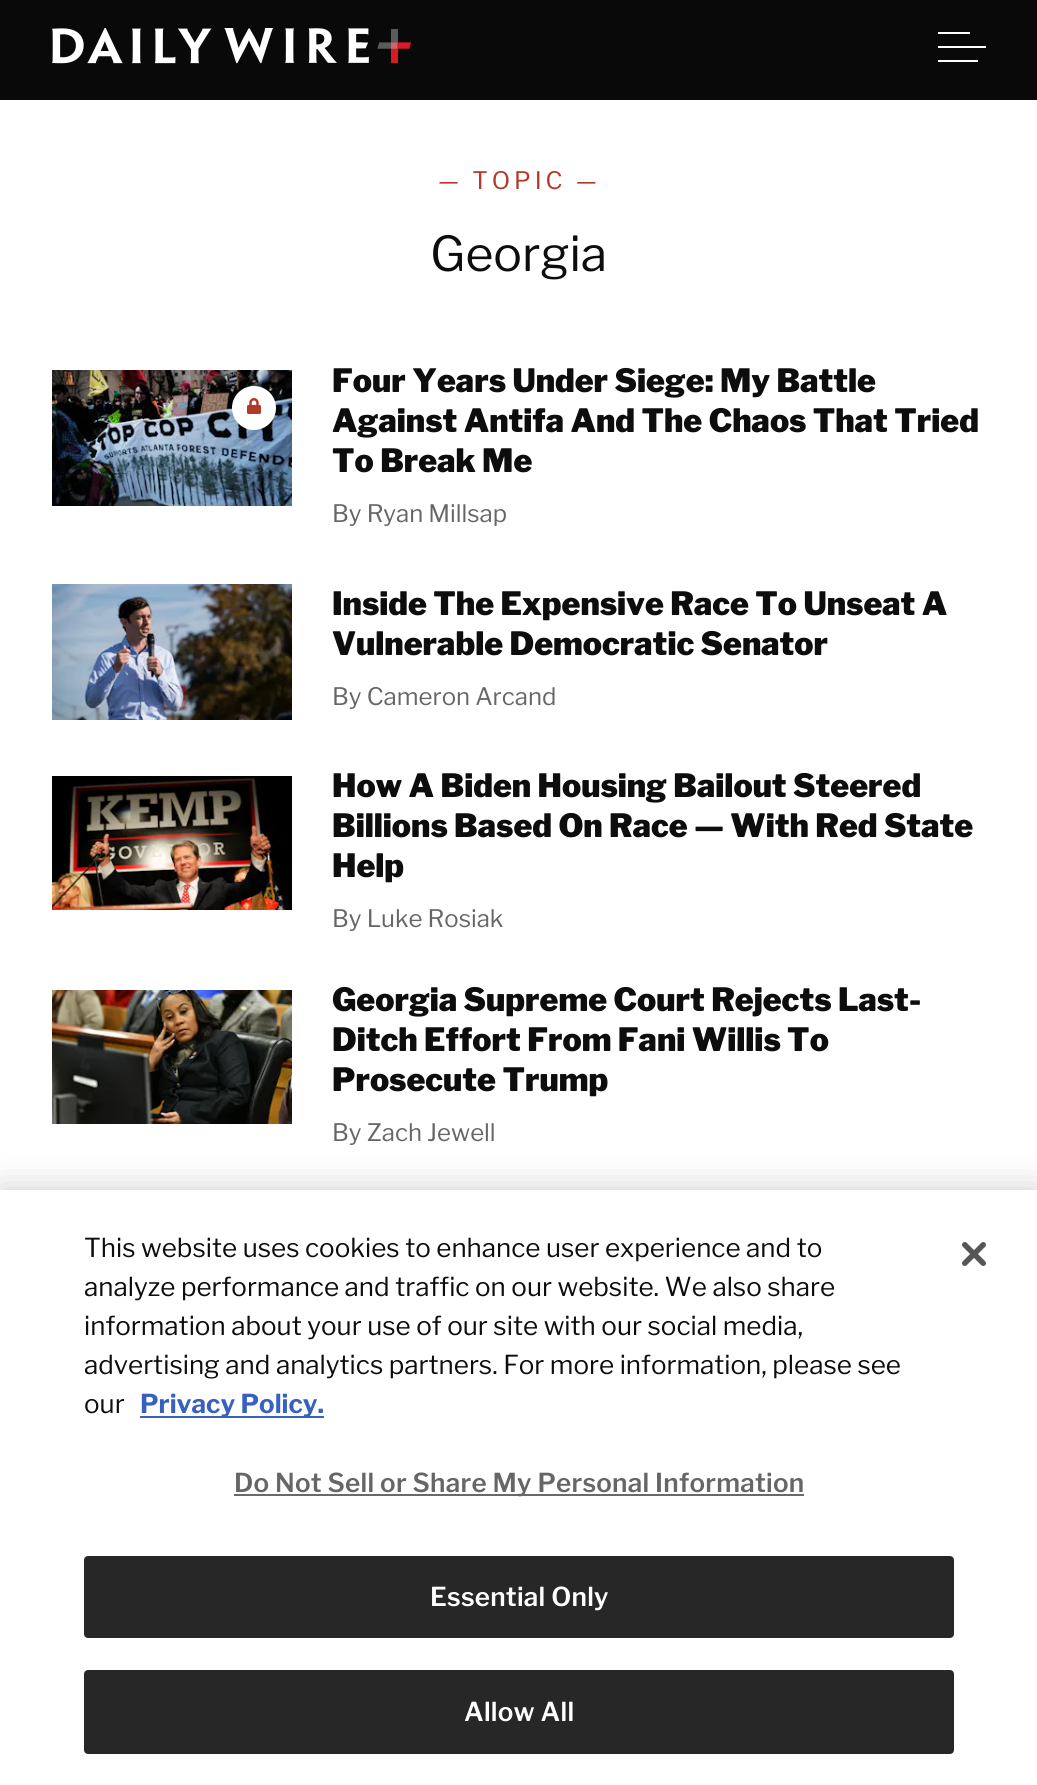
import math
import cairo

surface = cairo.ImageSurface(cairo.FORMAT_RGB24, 1037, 1785)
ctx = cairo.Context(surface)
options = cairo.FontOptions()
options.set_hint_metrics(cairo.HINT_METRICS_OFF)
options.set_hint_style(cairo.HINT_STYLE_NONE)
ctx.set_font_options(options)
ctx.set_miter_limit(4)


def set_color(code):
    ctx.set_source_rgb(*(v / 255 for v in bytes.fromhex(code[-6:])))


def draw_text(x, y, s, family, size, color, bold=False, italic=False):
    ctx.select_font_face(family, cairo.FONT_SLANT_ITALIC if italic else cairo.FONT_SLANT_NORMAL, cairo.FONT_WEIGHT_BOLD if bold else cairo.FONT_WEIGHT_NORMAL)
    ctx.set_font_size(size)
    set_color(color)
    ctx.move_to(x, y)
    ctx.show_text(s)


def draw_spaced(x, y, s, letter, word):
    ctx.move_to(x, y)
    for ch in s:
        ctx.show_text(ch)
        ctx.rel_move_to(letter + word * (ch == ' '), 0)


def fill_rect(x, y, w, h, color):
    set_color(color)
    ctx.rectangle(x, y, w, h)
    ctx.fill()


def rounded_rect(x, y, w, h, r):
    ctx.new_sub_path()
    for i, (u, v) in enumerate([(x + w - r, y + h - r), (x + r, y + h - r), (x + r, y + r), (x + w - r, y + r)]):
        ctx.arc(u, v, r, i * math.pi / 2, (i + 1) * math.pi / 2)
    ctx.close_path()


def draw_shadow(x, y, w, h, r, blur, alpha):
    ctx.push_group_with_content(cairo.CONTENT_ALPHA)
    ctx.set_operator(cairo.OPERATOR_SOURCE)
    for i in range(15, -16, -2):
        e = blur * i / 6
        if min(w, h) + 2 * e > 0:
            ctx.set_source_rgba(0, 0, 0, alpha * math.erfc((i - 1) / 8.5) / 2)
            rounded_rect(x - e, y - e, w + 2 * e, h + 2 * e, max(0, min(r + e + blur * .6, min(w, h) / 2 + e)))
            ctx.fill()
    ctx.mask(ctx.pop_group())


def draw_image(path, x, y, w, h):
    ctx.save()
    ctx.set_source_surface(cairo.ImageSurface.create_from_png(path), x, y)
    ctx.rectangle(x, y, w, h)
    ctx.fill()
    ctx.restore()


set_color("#ffffff")
ctx.paint()
fill_rect(0, 0, 1037, 100, "#0a0909")
draw_image("assets/img1.png", 52, 28, 360, 36)
fill_rect(938, 32, 32, 2, "#ffffff")
fill_rect(938, 46, 48, 2, "#ffffff")
fill_rect(938, 60, 40, 2, "#ffffff")
ctx.select_font_face("Libre Franklin")
ctx.set_font_size(24)
set_color("#b33828")
draw_spaced(438, 189, "— TOPIC —", 4, 0)
draw_text(430, 271, "Georgia", "Libre Franklin", 48, "#0d0d0d")
draw_image("assets/img2.png", 52, 370, 240, 136)
set_color("#ffffff")
ctx.arc(254, 408, 22, 0, 2 * math.pi)
ctx.fill()
draw_image("assets/img3.png", 247, 398, 14, 16)
draw_text(332, 392, "Four Years Under Siege: My Battle", "Libre Franklin Black", 32, "#0d0d0d")
draw_text(332, 432, "Against Antifa And The Chaos That Tried", "Libre Franklin Black", 32, "#0d0d0d")
draw_text(332, 472, "To Break Me", "Libre Franklin Black", 32, "#0d0d0d")
draw_text(332, 522, "By Ryan Millsap", "Libre Franklin", 24, "#666666")
draw_image("assets/img4.png", 52, 584, 240, 136)
draw_text(332, 615, "Inside The Expensive Race To Unseat A", "Libre Franklin Black", 32, "#0d0d0d")
draw_text(332, 655, "Vulnerable Democratic Senator", "Libre Franklin Black", 32, "#0d0d0d")
draw_text(332, 705, "By Cameron Arcand", "Libre Franklin", 24, "#666666")
draw_image("assets/img5.png", 52, 776, 240, 134)
draw_text(332, 797, "How A Biden Housing Bailout Steered", "Libre Franklin Black", 32, "#0d0d0d")
draw_text(332, 837, "Billions Based On Race — With Red State", "Libre Franklin Black", 32, "#0d0d0d")
draw_text(332, 877, "Help", "Libre Franklin Black", 32, "#0d0d0d")
draw_text(332, 927, "By Luke Rosiak", "Libre Franklin", 24, "#666666")
draw_image("assets/img6.png", 52, 990, 240, 134)
draw_text(332, 1011, "Georgia Supreme Court Rejects Last-", "Libre Franklin Black", 32, "#0d0d0d")
draw_text(332, 1051, "Ditch Effort From Fani Willis To", "Libre Franklin Black", 32, "#0d0d0d")
draw_text(332, 1091, "Prosecute Trump", "Libre Franklin Black", 32, "#0d0d0d")
draw_text(332, 1141, "By Zach Jewell", "Libre Franklin", 24, "#666666")
set_color("#000000")
draw_shadow(0, 1190, 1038, 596, 0, 18, 0.2)
fill_rect(0, 1190, 1037, 595, "#ffffff")
draw_text(84, 1257, "This website uses cookies to enhance user experience and to", "Libre Franklin", 26, "#0d0d0d")
draw_text(84, 1296, "analyze performance and traffic on our website. We also share", "Libre Franklin", 26, "#0d0d0d")
draw_text(84, 1335, "information about your use of our site with our social media,", "Libre Franklin", 26, "#0d0d0d")
draw_text(84, 1374, "advertising and analytics partners. For more information, please see", "Libre Franklin", 26, "#0d0d0d")
draw_text(84, 1413, "our", "Libre Franklin", 26, "#0d0d0d")
fill_rect(140, 1416, 184, 2, "#3860be")
draw_text(140, 1413, "Privacy Policy.", "Libre Franklin", 26, "#3860be", bold=True)
fill_rect(234, 1494, 570, 2, "#696969")
ctx.select_font_face("Libre Franklin SemiBold")
set_color("#666666")
draw_spaced(234, 1492, "Do Not Sell or Share My Personal Information", 0.25, 0)
set_color("#272727")
rounded_rect(85, 1557, 868, 80, 3)
ctx.fill_preserve()
ctx.stroke()
set_color("#ffffff")
draw_spaced(430, 1606, "Essential Only", 0.25, 0)
set_color("#272727")
rounded_rect(85, 1671, 868, 82, 3)
ctx.fill_preserve()
ctx.stroke()
set_color("#ffffff")
draw_spaced(464, 1721, "Allow All", 0.25, 0)
draw_image("assets/img7.png", 962, 1242, 24, 24)
surface.write_to_png("output.png")
